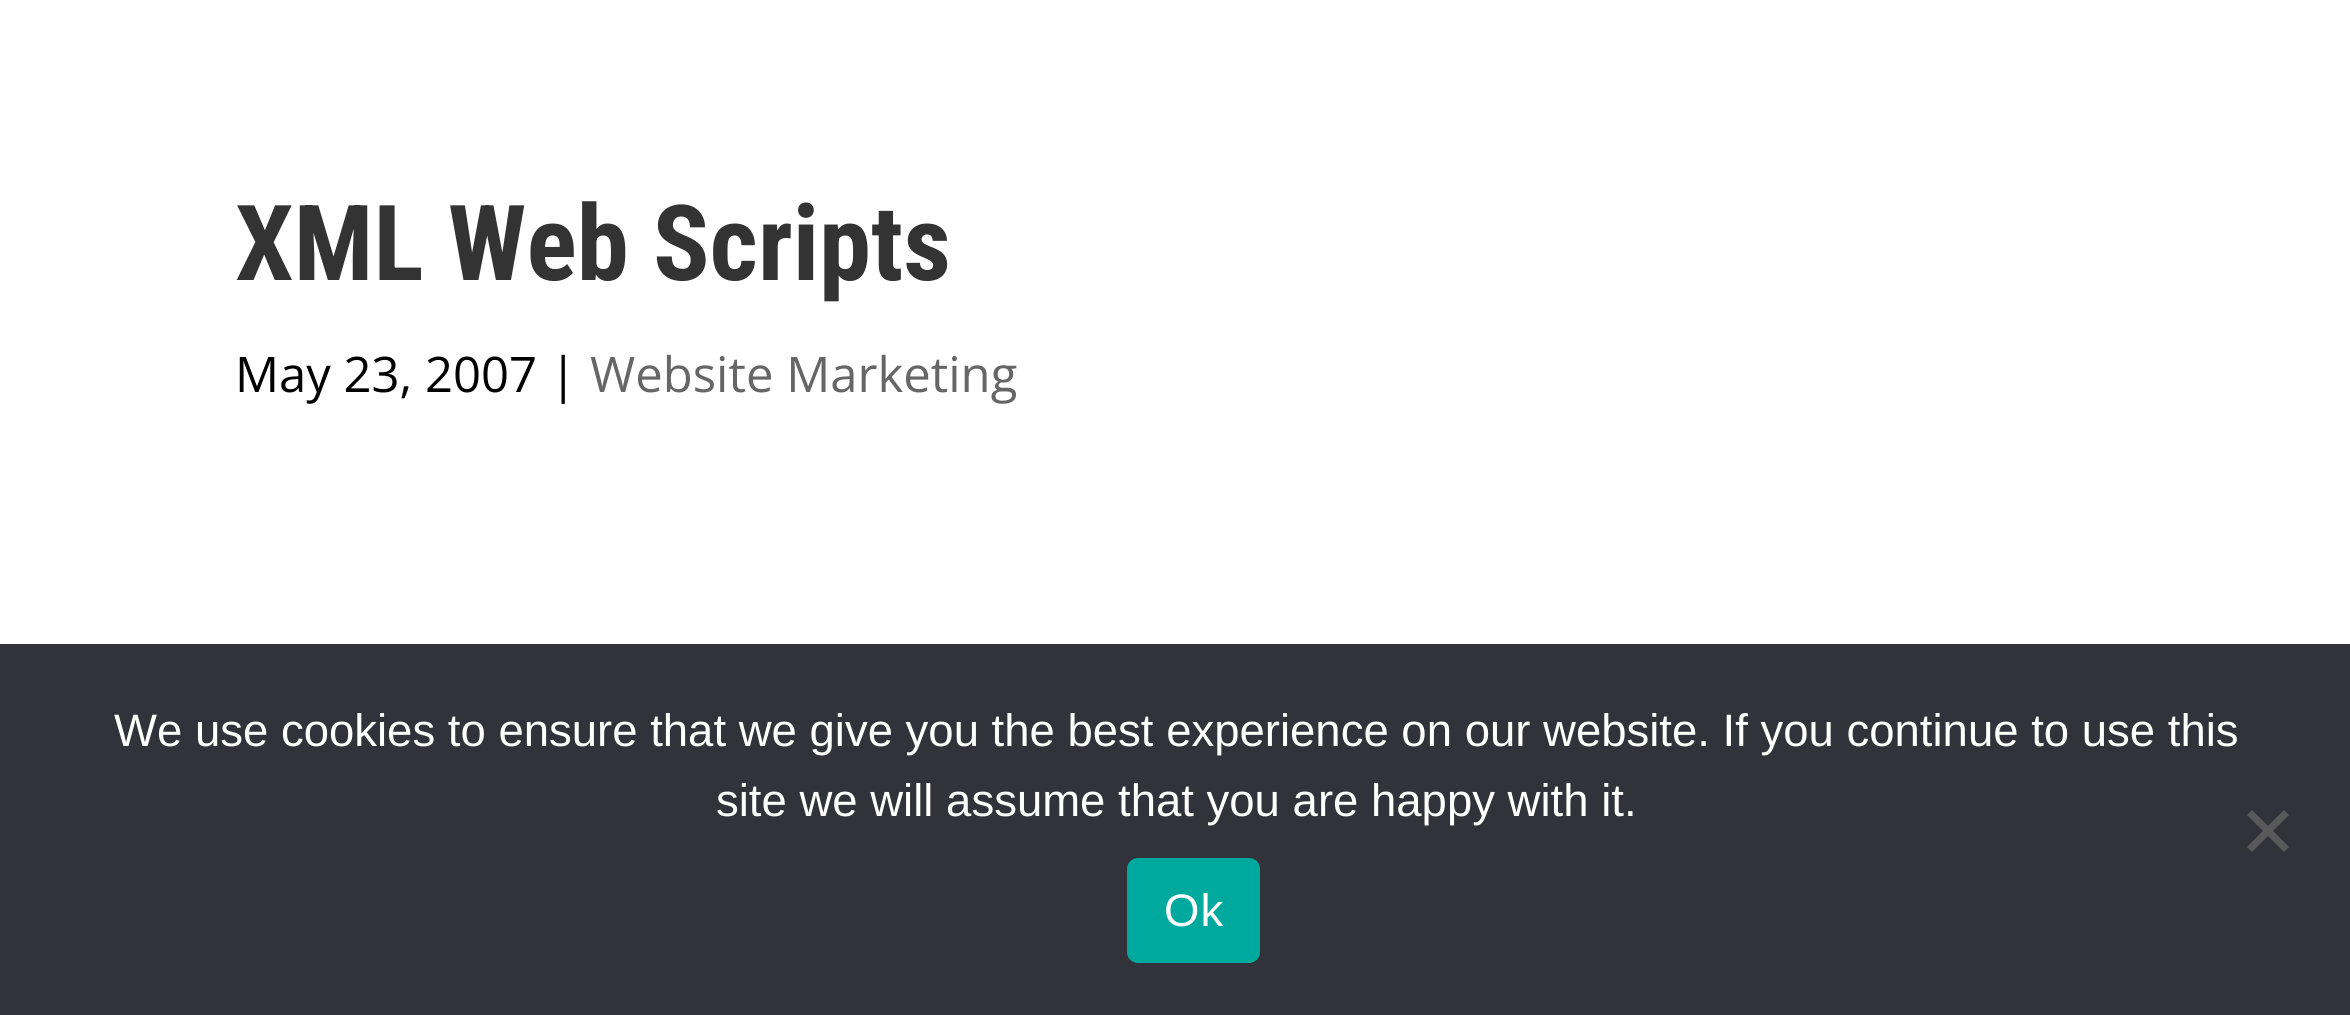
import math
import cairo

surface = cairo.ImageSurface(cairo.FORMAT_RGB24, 2350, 1015)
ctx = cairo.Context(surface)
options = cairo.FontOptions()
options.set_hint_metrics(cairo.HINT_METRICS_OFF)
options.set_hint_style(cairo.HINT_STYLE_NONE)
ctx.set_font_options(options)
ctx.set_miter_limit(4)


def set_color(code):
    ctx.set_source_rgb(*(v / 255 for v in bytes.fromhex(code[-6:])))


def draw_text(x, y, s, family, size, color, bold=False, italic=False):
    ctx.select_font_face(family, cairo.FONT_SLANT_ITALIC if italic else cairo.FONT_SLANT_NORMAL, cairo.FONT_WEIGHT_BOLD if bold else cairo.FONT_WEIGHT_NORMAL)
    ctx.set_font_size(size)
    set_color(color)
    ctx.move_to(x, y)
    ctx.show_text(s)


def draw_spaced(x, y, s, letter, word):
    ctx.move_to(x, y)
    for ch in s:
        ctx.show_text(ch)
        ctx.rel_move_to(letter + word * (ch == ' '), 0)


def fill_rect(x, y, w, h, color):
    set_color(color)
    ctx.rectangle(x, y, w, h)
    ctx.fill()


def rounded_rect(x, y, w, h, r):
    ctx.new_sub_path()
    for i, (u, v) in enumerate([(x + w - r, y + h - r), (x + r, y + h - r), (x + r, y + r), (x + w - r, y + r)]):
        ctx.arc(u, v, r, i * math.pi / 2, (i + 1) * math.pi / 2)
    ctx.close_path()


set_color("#ffffff")
ctx.paint()
draw_text(235, 280, "XML Web Scripts", "Roboto Condensed", 105, "#333333", bold=True)
draw_text(235, 392, "May 23, 2007 |", "Open Sans", 49, "#000000")
draw_text(590, 392, "Website Marketing", "Open Sans", 49, "#666666")
fill_rect(0, 644, 2350, 371, "#32323a")
draw_text(114, 746, "We use cookies to ensure that we give you the best experience on our website. If you continue to use this", "Liberation Sans", 45.5, "#ffffff")
draw_text(716, 816, "site we will assume that you are happy with it.", "Liberation Sans", 45.5, "#ffffff")
set_color("#59595d")
ctx.new_path()
ctx.move_to(2284, 810)
ctx.line_to(2289, 815)
ctx.line_to(2252, 852)
ctx.line_to(2247, 847)
ctx.close_path()
ctx.fill()
ctx.new_path()
ctx.move_to(2247, 815)
ctx.line_to(2252, 810)
ctx.line_to(2289, 847)
ctx.line_to(2284, 852)
ctx.close_path()
ctx.fill()
set_color("#00a99d")
rounded_rect(1127, 858, 133, 105, 11)
ctx.fill()
set_color("#ffffff")
draw_spaced(1164, 926, "Ok", 1, 0)
surface.write_to_png("output.png")
